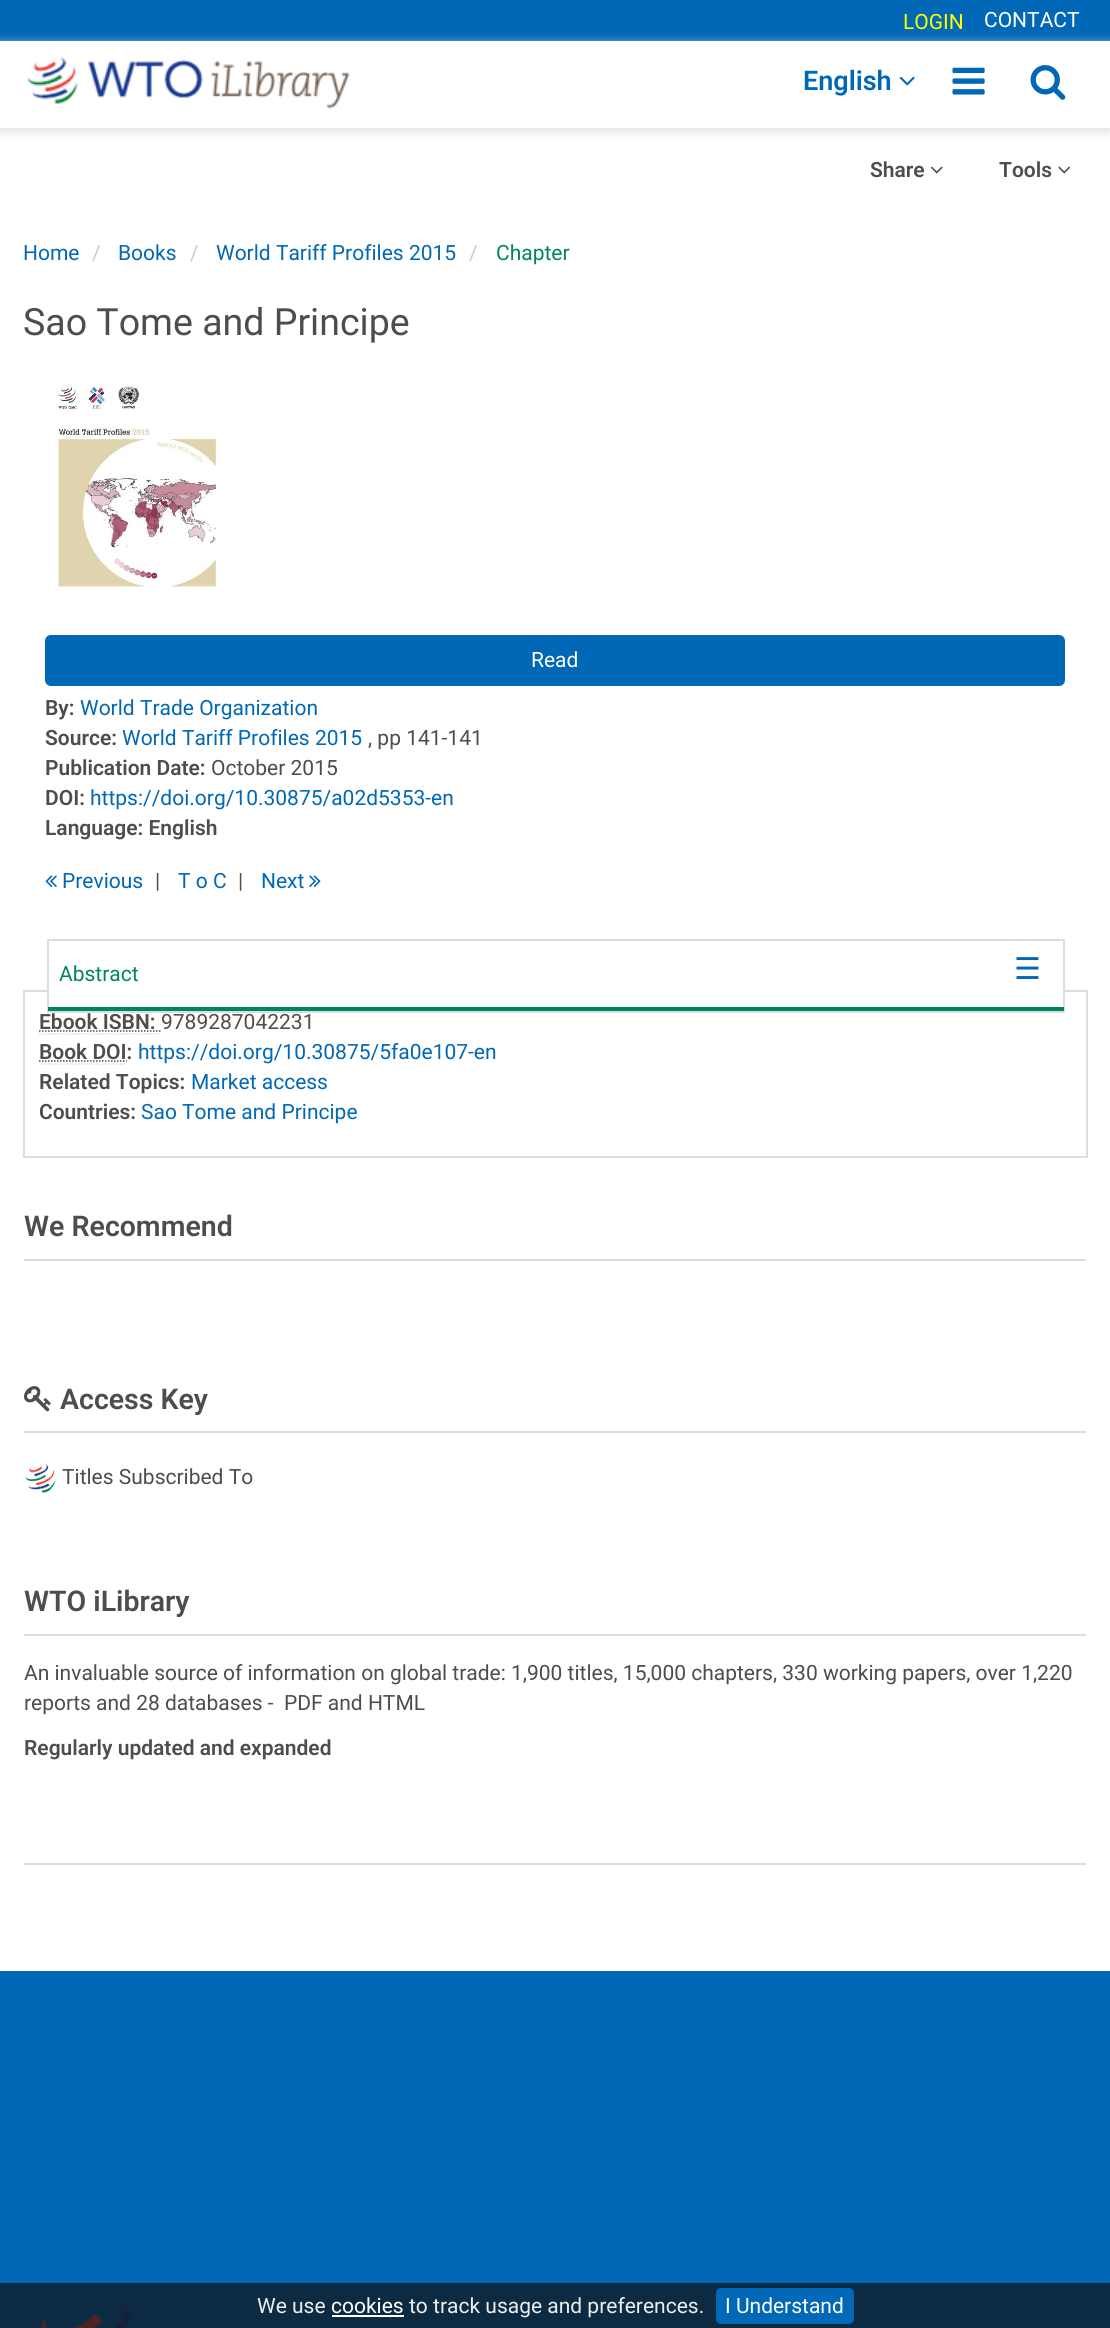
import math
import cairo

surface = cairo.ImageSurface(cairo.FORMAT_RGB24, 1110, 2328)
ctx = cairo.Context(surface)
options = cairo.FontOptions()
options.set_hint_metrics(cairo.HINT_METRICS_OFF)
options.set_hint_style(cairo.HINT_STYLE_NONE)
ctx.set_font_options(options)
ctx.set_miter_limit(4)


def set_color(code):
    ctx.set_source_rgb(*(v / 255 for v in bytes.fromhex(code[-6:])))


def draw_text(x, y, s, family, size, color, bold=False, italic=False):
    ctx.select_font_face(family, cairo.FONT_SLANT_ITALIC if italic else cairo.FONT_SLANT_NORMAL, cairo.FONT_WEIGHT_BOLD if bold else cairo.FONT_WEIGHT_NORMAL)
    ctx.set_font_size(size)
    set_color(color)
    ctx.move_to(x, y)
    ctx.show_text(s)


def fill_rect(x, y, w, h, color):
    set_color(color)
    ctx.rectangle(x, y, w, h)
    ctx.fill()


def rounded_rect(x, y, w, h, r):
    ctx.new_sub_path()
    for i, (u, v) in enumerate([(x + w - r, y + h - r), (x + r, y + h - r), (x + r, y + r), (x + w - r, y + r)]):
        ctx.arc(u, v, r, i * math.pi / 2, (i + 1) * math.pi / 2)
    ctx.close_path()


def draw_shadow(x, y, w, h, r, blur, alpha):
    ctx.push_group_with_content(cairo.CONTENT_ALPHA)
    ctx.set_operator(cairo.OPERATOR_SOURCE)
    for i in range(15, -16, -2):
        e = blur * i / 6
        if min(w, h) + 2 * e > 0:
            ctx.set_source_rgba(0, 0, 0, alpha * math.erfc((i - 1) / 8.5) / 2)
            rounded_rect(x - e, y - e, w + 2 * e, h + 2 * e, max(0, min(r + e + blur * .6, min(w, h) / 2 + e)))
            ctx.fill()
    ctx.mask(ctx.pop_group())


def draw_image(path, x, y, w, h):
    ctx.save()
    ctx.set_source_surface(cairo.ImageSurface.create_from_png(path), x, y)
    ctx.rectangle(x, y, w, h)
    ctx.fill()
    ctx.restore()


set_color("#ffffff")
ctx.paint()
fill_rect(0, 0, 1110, 41, "#0068b6")
set_color("#dddddd")
draw_shadow(0, 44, 1110, 87, 0, 5, 1)
draw_text(903, 29, "LOGIN", "Roboto", 21, "#ffff00")
draw_text(984, 27, "CONTACT", "Roboto", 21, "#ffffff")
fill_rect(0, 41, 1110, 87, "#ffffff")
draw_image("assets/img1.png", 27, 57, 323, 52)
draw_text(803, 90, "English", "Roboto SemiBold", 27, "#0068b6")
draw_image("assets/img2.png", 899, 76, 16, 10)
draw_image("assets/img3.png", 952, 67, 33, 28)
draw_image("assets/img4.png", 1030, 65, 36, 35)
draw_text(870, 177, "Share", "Roboto SemiBold", 21, "#4d4d4d")
draw_image("assets/img5.png", 930, 166, 13, 8)
draw_text(999, 177, "Tools", "Roboto SemiBold", 21, "#4d4d4d")
draw_image("assets/img6.png", 1058, 166, 13, 8)
draw_text(23, 260, "Home", "Roboto", 21, "#0068b6")
draw_text(92, 260, "/", "Roboto", 21, "#cccccc")
draw_text(118, 260, "Books", "Roboto", 21, "#0068b6")
draw_text(190, 260, "/", "Roboto", 21, "#cccccc")
draw_text(216, 260, "World Tariff Profiles 2015", "Roboto", 21, "#0068b6")
draw_text(469, 260, "/", "Roboto", 21, "#cccccc")
draw_text(496, 260, "Chapter", "Roboto", 21, "#008461")
draw_text(23, 335, "Sao Tome and Principe", "Roboto", 37.5, "#4d4d4d")
draw_image("assets/img7.png", 57, 386, 159, 202)
set_color("#0068b6")
rounded_rect(46, 636, 1018, 49, 5)
ctx.fill_preserve()
ctx.stroke()
draw_text(531, 667, "Read", "Roboto", 21, "#ffffff")
draw_text(45, 715, "By:", "Roboto SemiBold", 21, "#4d4d4d")
draw_text(80, 715, "World Trade Organization", "Roboto", 21, "#0068b6")
draw_text(45, 745, "Source:", "Roboto SemiBold", 21, "#4d4d4d")
draw_text(122, 745, "World Tariff Profiles 2015", "Roboto", 21, "#0068b6")
draw_text(368, 745, ", pp 141-141", "Roboto", 21, "#4d4d4d")
draw_text(45, 775, "Publication Date:", "Roboto SemiBold", 21, "#4d4d4d")
draw_text(211, 775, "October 2015", "Roboto", 21, "#4d4d4d")
draw_text(45, 805, "DOI:", "Roboto SemiBold", 21, "#4d4d4d")
draw_text(90, 805, "https://doi.org/10.30875/a02d5353-en", "Roboto", 21, "#0068b6")
draw_text(45, 835, "Language: English", "Roboto SemiBold", 21, "#4d4d4d")
draw_image("assets/img8.png", 45, 875, 12, 12)
draw_text(62, 888, "Previous", "Roboto", 21, "#0068b6")
draw_text(155, 888, "|", "Roboto", 21, "#4d4d4d")
draw_text(178, 888, "T o C", "Roboto", 21, "#0068b6")
draw_text(238, 888, "|", "Roboto", 21, "#4d4d4d")
draw_text(261, 888, "Next", "Roboto", 21, "#0068b6")
draw_image("assets/img9.png", 309, 875, 12, 12)
ctx.rectangle(24, 991, 1063, 166)
set_color("#dddddd")
ctx.stroke()
fill_rect(49, 990, 1014, 2, "#ffffff")
ctx.rectangle(48, 940, 1016, 72)
set_color("#dddddd")
ctx.stroke()
fill_rect(48, 1007, 1016, 4, "#008461")
draw_text(59, 981, "Abstract", "Roboto", 21, "#008461")
draw_text(1014, 979, "☰", "DejaVu Sans", 30, "#0068b6")
draw_text(39, 1029, "Ebook ISBN:", "Roboto SemiBold", 21, "#4d4d4d")
ctx.new_path()
ctx.move_to(39, 1034)
ctx.line_to(160.5, 1034)
set_color("#d5dfec")
ctx.set_line_width(1.5)
ctx.set_dash([1.5, 1.5])
ctx.stroke()
ctx.new_path()
ctx.move_to(39, 1031)
ctx.line_to(160.5, 1031)
set_color("#4d4d4d")
ctx.stroke()
draw_text(161, 1029, "9789287042231", "Roboto", 21, "#4d4d4d")
draw_text(39, 1059, "Book DOI:", "Roboto SemiBold", 21, "#4d4d4d")
ctx.new_path()
ctx.move_to(39, 1064)
ctx.line_to(126, 1064)
set_color("#d5dfec")
ctx.stroke()
ctx.new_path()
ctx.move_to(39, 1061)
ctx.line_to(126.5, 1061)
set_color("#4d4d4d")
ctx.stroke()
draw_text(138, 1059, "https://doi.org/10.30875/5fa0e107-en", "Roboto", 21, "#0068b6")
draw_text(39, 1089, "Related Topics:", "Roboto SemiBold", 21, "#4d4d4d")
draw_text(191, 1089, "Market access", "Roboto", 21, "#0068b6")
draw_text(39, 1119, "Countries:", "Roboto SemiBold", 21, "#4d4d4d")
draw_text(141, 1119, "Sao Tome and Principe", "Roboto", 21, "#0068b6")
fill_rect(24, 1259, 1062, 2, "#dddddd")
draw_text(24, 1236, "We Recommend", "Roboto SemiBold", 28.5, "#4d4d4d")
fill_rect(24, 1431, 1062, 2, "#dddddd")
draw_image("assets/img10.png", 24, 1386, 27, 26)
draw_text(60, 1409, "Access Key", "Roboto SemiBold", 28.5, "#4d4d4d")
draw_image("assets/img11.png", 25, 1464, 31, 29)
draw_text(62, 1484, "Titles Subscribed To", "Roboto", 21, "#4d4d4d")
fill_rect(24, 1634, 1062, 2, "#dddddd")
draw_text(24, 1611, "WTO iLibrary", "Roboto SemiBold", 28.5, "#4d4d4d")
draw_text(24, 1680, "An invaluable source of information on global trade: 1,900 titles, 15,000 chapters, 330 working papers, over 1,220", "Roboto", 21, "#4d4d4d")
draw_text(24, 1710, "reports and 28 databases -  PDF and HTML", "Roboto", 21, "#4d4d4d")
draw_text(24, 1755, "Regularly updated and expanded", "Roboto SemiBold", 21, "#4d4d4d")
fill_rect(24, 1863, 1062, 2, "#dddddd")
fill_rect(0, 1971, 1110, 312, "#0068b6")
fill_rect(0, 2283, 1110, 45, "#0c2b43")
draw_image("assets/img12.png", 40, 2302, 91, 26)
draw_text(257, 2313, "We use", "Roboto", 21, "#eeeeee")
draw_text(331, 2313, "cookies", "Roboto", 21, "#ffffff")
fill_rect(332, 2315, 72, 2, "#ffffff")
draw_text(409, 2313, "to track usage and preferences.", "Roboto", 21, "#eeeeee")
set_color("#0068b6")
rounded_rect(716, 2288, 138, 36, 5)
ctx.fill()
draw_text(725, 2313, "I Understand", "Roboto", 21, "#ffffff")
surface.write_to_png("output.png")
